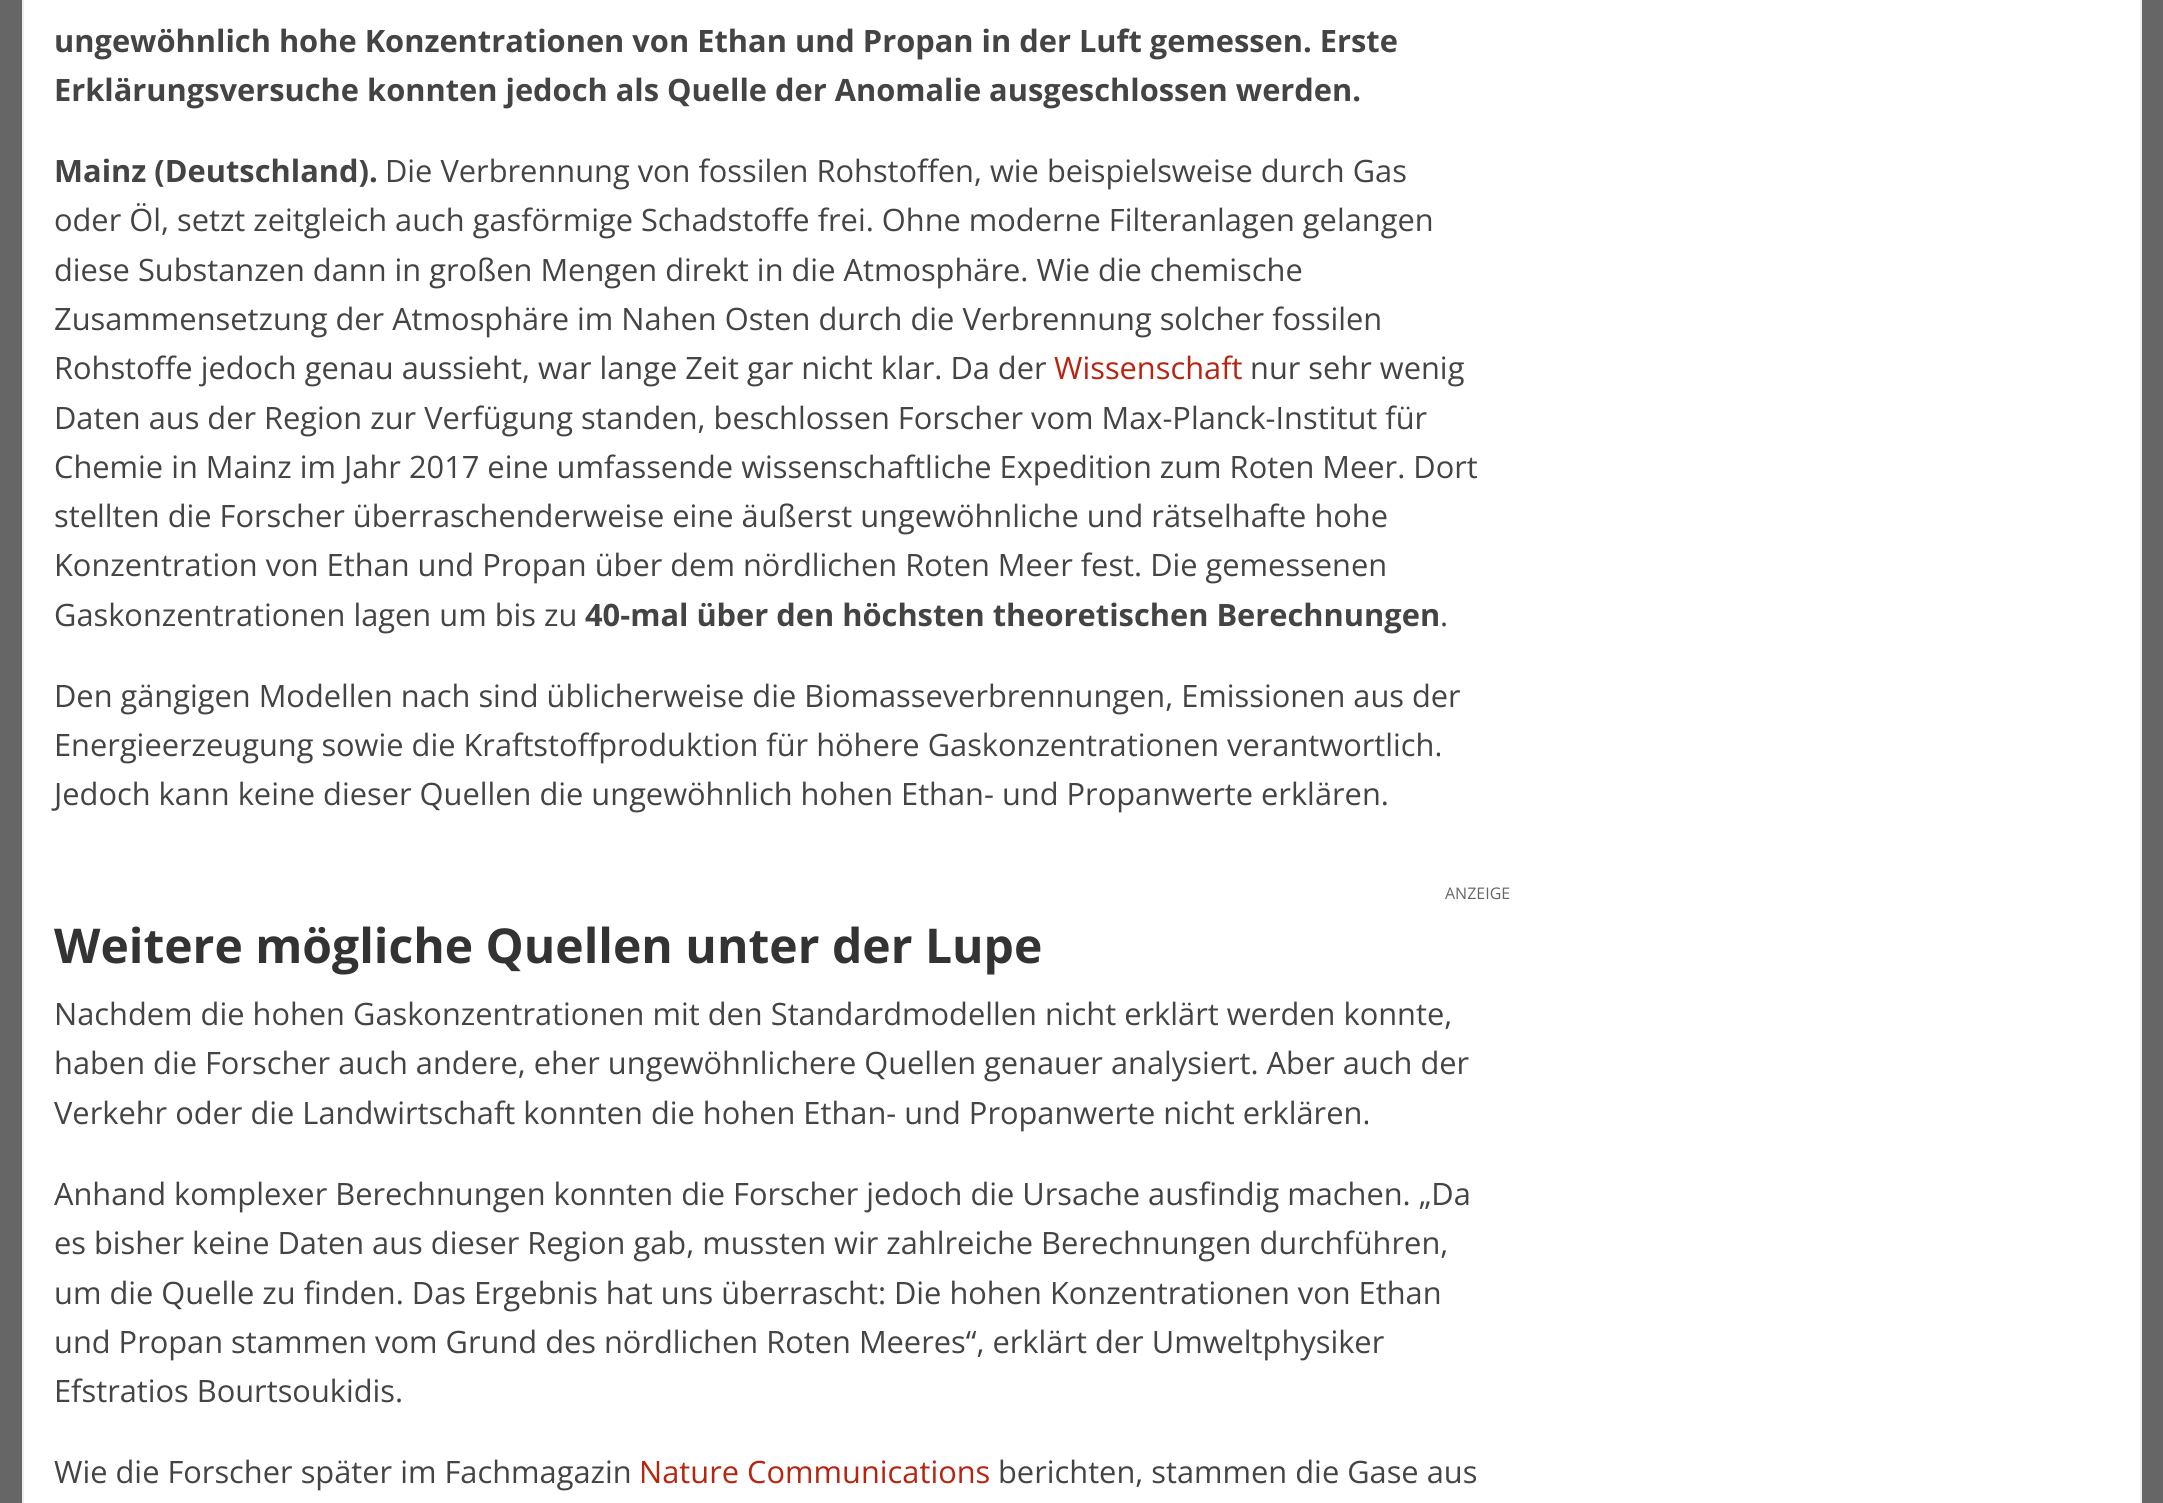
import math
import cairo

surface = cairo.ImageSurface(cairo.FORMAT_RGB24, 2163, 1503)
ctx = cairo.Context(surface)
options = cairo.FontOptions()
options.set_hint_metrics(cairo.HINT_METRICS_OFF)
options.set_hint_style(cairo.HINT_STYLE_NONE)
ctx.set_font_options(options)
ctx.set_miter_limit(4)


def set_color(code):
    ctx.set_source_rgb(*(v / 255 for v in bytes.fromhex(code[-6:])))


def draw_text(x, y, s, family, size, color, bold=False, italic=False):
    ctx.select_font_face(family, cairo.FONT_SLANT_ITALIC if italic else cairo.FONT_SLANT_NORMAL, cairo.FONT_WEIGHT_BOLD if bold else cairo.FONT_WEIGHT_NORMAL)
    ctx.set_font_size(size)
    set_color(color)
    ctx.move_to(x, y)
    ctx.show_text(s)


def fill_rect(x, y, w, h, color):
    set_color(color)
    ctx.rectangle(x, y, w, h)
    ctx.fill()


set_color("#666666")
ctx.paint()
fill_rect(24, 0, 2116, 1503, "#ffffff")
fill_rect(2140, 0, 2, 1503, "#eeeeee")
fill_rect(22, 0, 2, 1503, "#eeeeee")
draw_text(54, 52, "ungewöhnlich hohe Konzentrationen von Ethan und Propan in der Luft gemessen. Erste", "Open Sans", 30.8, "#444444", bold=True)
draw_text(54, 101, "Erklärungsversuche konnten jedoch als Quelle der Anomalie ausgeschlossen werden.", "Open Sans", 30.8, "#444444", bold=True)
draw_text(54, 182, "Mainz (Deutschland).", "Open Sans", 30.8, "#444444", bold=True)
draw_text(385, 182, "Die Verbrennung von fossilen Rohstoffen, wie beispielsweise durch Gas", "Open Sans", 30.8, "#444444")
draw_text(54, 231, "oder Öl, setzt zeitgleich auch gasförmige Schadstoffe frei. Ohne moderne Filteranlagen gelangen", "Open Sans", 30.8, "#444444")
draw_text(54, 281, "diese Substanzen dann in großen Mengen direkt in die Atmosphäre. Wie die chemische", "Open Sans", 30.8, "#444444")
draw_text(54, 330, "Zusammensetzung der Atmosphäre im Nahen Osten durch die Verbrennung solcher fossilen", "Open Sans", 30.8, "#444444")
draw_text(54, 379, "Rohstoffe jedoch genau aussieht, war lange Zeit gar nicht klar. Da der", "Open Sans", 30.8, "#444444")
draw_text(1054, 379, "Wissenschaft", "Open Sans", 30.8, "#b92410")
draw_text(1250, 379, "nur sehr wenig", "Open Sans", 30.8, "#444444")
draw_text(54, 429, "Daten aus der Region zur Verfügung standen, beschlossen Forscher vom Max-Planck-Institut für", "Open Sans", 30.8, "#444444")
draw_text(54, 478, "Chemie in Mainz im Jahr 2017 eine umfassende wissenschaftliche Expedition zum Roten Meer. Dort", "Open Sans", 30.8, "#444444")
draw_text(54, 527, "stellten die Forscher überraschenderweise eine äußerst ungewöhnliche und rätselhafte hohe", "Open Sans", 30.8, "#444444")
draw_text(54, 576, "Konzentration von Ethan und Propan über dem nördlichen Roten Meer fest. Die gemessenen", "Open Sans", 30.8, "#444444")
draw_text(54, 626, "Gaskonzentrationen lagen um bis zu", "Open Sans", 30.8, "#444444")
draw_text(585, 626, "40-mal über den höchsten theoretischen Berechnungen", "Open Sans", 30.8, "#444444", bold=True)
draw_text(1440, 626, ".", "Open Sans", 30.8, "#444444")
draw_text(54, 707, "Den gängigen Modellen nach sind üblicherweise die Biomasseverbrennungen, Emissionen aus der", "Open Sans", 30.8, "#444444")
draw_text(54, 756, "Energieerzeugung sowie die Kraftstoffproduktion für höhere Gaskonzentrationen verantwortlich.", "Open Sans", 30.8, "#444444")
draw_text(54, 805, "Jedoch kann keine dieser Quellen die ungewöhnlich hohen Ethan- und Propanwerte erklären.", "Open Sans", 30.8, "#444444")
draw_text(1445, 899, "ANZEIGE", "Open Sans", 16, "#666666")
draw_text(54, 963, "Weitere mögliche Quellen unter der Lupe", "Open Sans", 48, "#333333", bold=True)
draw_text(54, 1025, "Nachdem die hohen Gaskonzentrationen mit den Standardmodellen nicht erklärt werden konnte,", "Open Sans", 30.8, "#444444")
draw_text(54, 1074, "haben die Forscher auch andere, eher ungewöhnlichere Quellen genauer analysiert. Aber auch der", "Open Sans", 30.8, "#444444")
draw_text(54, 1124, "Verkehr oder die Landwirtschaft konnten die hohen Ethan- und Propanwerte nicht erklären.", "Open Sans", 30.8, "#444444")
draw_text(54, 1205, "Anhand komplexer Berechnungen konnten die Forscher jedoch die Ursache ausfindig machen. „Da", "Open Sans", 30.8, "#444444")
draw_text(54, 1254, "es bisher keine Daten aus dieser Region gab, mussten wir zahlreiche Berechnungen durchführen,", "Open Sans", 30.8, "#444444")
draw_text(54, 1304, "um die Quelle zu finden. Das Ergebnis hat uns überrascht: Die hohen Konzentrationen von Ethan", "Open Sans", 30.8, "#444444")
draw_text(54, 1353, "und Propan stammen vom Grund des nördlichen Roten Meeres“, erklärt der Umweltphysiker", "Open Sans", 30.8, "#444444")
draw_text(54, 1402, "Efstratios Bourtsoukidis.", "Open Sans", 30.8, "#444444")
draw_text(54, 1483, "Wie die Forscher später im Fachmagazin", "Open Sans", 30.8, "#444444")
draw_text(639, 1483, "Nature Communications", "Open Sans", 30.8, "#b92410")
draw_text(998, 1483, "berichten, stammen die Gase aus", "Open Sans", 30.8, "#444444")
surface.write_to_png("output.png")
